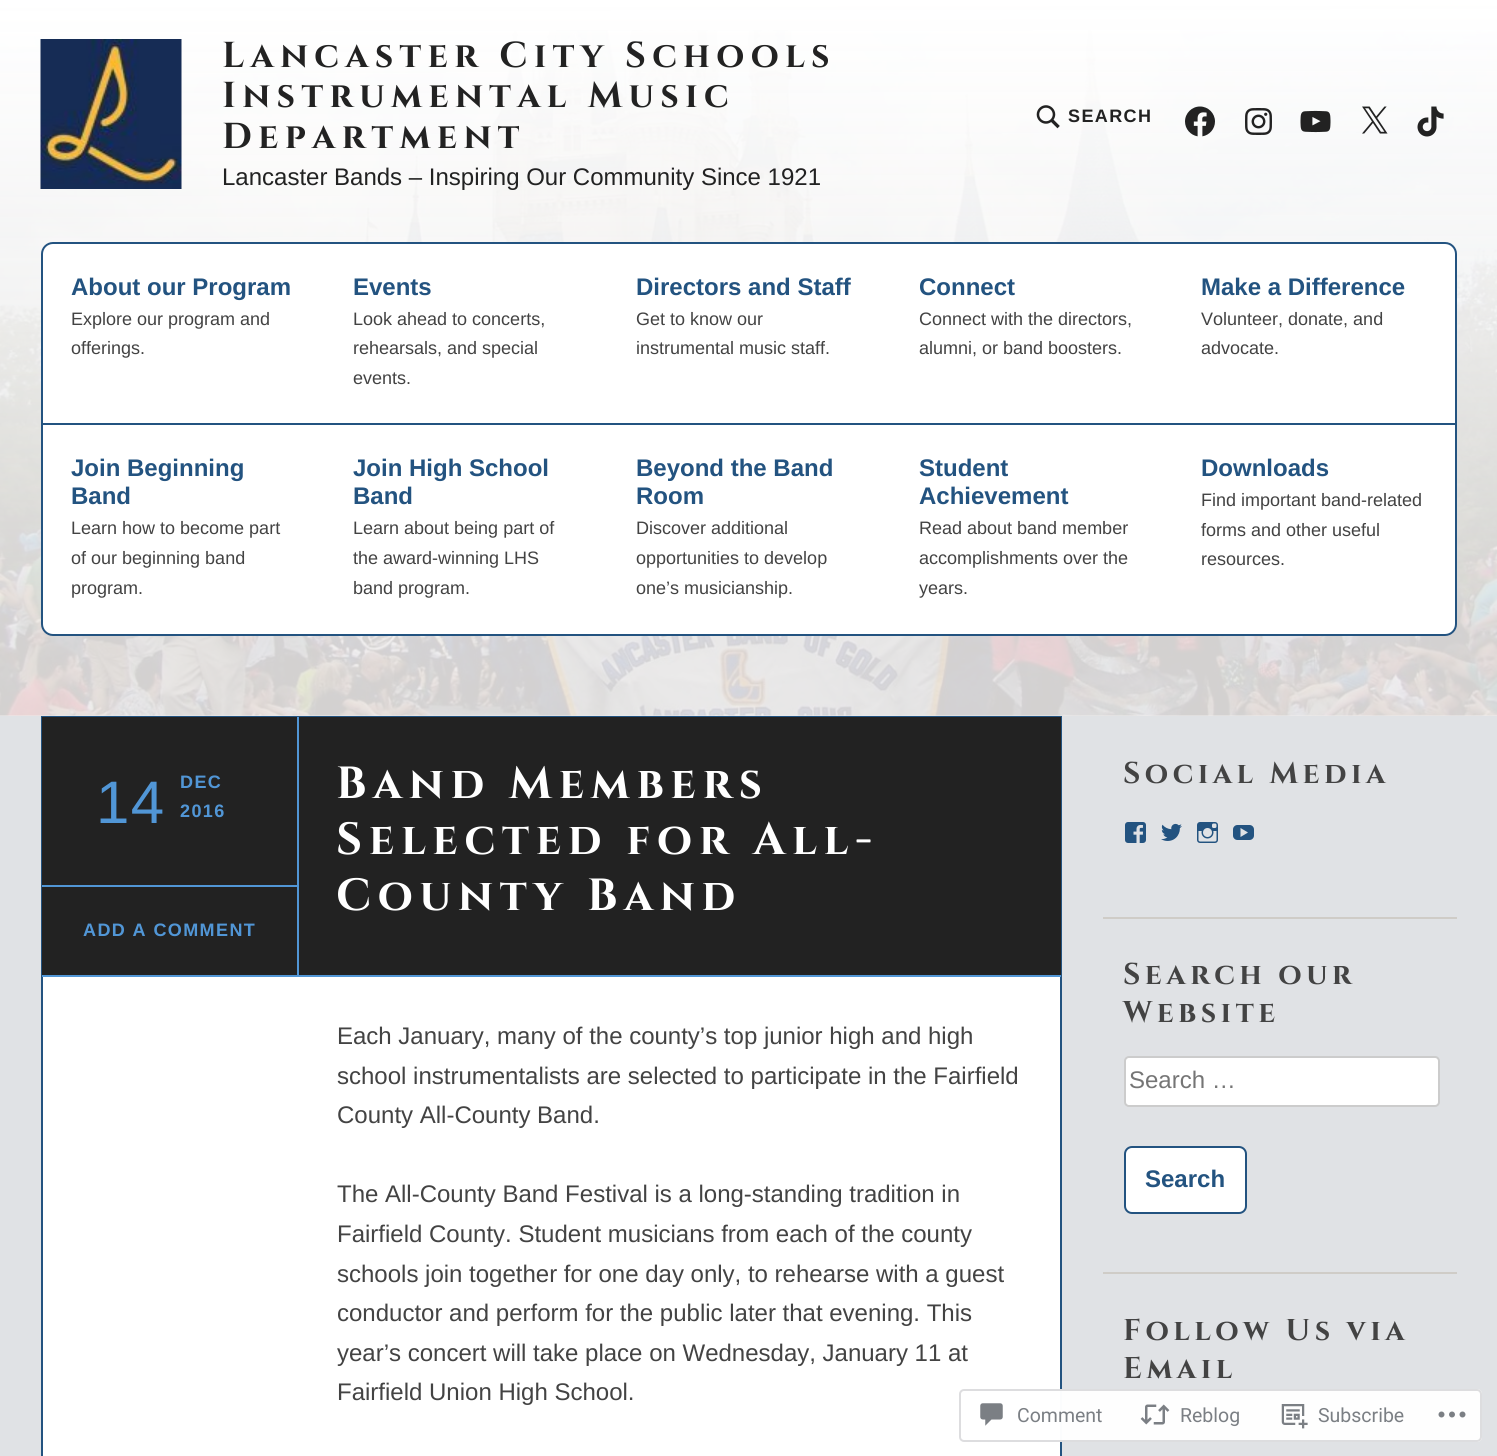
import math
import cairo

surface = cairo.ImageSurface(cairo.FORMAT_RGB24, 1497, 1456)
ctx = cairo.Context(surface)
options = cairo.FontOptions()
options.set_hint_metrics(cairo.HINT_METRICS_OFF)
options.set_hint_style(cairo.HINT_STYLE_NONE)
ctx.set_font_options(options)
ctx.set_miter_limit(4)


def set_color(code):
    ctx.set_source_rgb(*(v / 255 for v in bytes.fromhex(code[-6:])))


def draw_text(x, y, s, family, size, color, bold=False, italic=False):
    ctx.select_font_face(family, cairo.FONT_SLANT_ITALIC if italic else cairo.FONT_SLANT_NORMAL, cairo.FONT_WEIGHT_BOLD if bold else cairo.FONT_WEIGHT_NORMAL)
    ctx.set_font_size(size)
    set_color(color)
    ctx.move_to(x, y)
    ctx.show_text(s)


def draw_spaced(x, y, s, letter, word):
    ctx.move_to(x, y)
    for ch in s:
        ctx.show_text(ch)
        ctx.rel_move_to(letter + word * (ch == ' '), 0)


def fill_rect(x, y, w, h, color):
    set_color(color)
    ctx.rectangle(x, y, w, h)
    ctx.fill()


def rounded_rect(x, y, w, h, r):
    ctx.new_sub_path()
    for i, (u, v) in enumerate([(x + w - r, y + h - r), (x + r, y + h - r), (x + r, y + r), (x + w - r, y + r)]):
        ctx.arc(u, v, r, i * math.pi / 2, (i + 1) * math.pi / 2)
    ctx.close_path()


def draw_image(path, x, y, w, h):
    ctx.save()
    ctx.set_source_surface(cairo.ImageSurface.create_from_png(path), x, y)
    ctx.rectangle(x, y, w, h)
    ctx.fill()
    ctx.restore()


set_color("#e0e2e5")
ctx.paint()
draw_image("assets/img1.png", 0, 30, 1497, 686)
gradient = cairo.LinearGradient(748, 0, 749, 716)
gradient.add_color_stop_rgba(0, 1, 1, 1, 1)
gradient.add_color_stop_rgba(0.88, 0.941, 0.933, 0.925, 0.88)
ctx.set_source(gradient)
ctx.rectangle(0, 0, 1497, 716)
ctx.fill()
draw_image("assets/img2.png", 40, 39, 142, 150)
ctx.select_font_face("Cinzel", cairo.FONT_SLANT_NORMAL, cairo.FONT_WEIGHT_BOLD)
ctx.set_font_size(36)
set_color("#222222")
draw_spaced(222, 67, "Lancaster City Schools", 6.3, 0)
draw_spaced(222, 107, "Instrumental Music", 6.3, 0)
draw_spaced(222, 148, "Department", 6.3, 0)
draw_text(222, 185, "Lancaster Bands – Inspiring Our Community Since 1921", "Arimo", 24, "#222222")
draw_image("assets/img3.png", 1036, 105, 24, 24)
ctx.select_font_face("Arimo", cairo.FONT_SLANT_NORMAL, cairo.FONT_WEIGHT_BOLD)
ctx.set_font_size(18)
draw_spaced(1068, 122, "SEARCH", 1.4, 0)
draw_image("assets/img4.png", 1185, 106, 30, 31)
draw_image("assets/img5.png", 1245, 108, 27, 27)
draw_image("assets/img6.png", 1300, 110, 31, 23)
draw_image("assets/img7.png", 1362, 106, 26, 28)
draw_image("assets/img8.png", 1417, 106, 27, 31)
set_color("#ffffff")
rounded_rect(42, 243, 1414, 392, 11)
ctx.fill_preserve()
set_color("#235380")
ctx.stroke()
draw_text(71, 295, "About our Program", "Arimo", 24, "#235380", bold=True)
draw_text(71, 325, "Explore our program and", "Arimo", 18, "#434343")
draw_text(71, 354, "offerings.", "Arimo", 18, "#434343")
fill_rect(41, 423, 1416, 2, "#235380")
draw_text(353, 295, "Events", "Arimo", 24, "#235380", bold=True)
draw_text(353, 325, "Look ahead to concerts,", "Arimo", 18, "#434343")
draw_text(353, 354, "rehearsals, and special", "Arimo", 18, "#434343")
draw_text(353, 384, "events.", "Arimo", 18, "#434343")
draw_text(636, 295, "Directors and Staff", "Arimo", 24, "#235380", bold=True)
draw_text(636, 325, "Get to know our", "Arimo", 18, "#434343")
draw_text(636, 354, "instrumental music staff.", "Arimo", 18, "#434343")
draw_text(919, 295, "Connect", "Arimo", 24, "#235380", bold=True)
draw_text(919, 325, "Connect with the directors,", "Arimo", 18, "#434343")
draw_text(919, 354, "alumni, or band boosters.", "Arimo", 18, "#434343")
draw_text(1201, 295, "Make a Difference", "Arimo", 24, "#235380", bold=True)
draw_text(1201, 325, "Volunteer, donate, and", "Arimo", 18, "#434343")
draw_text(1201, 354, "advocate.", "Arimo", 18, "#434343")
draw_text(71, 476, "Join Beginning", "Arimo", 24, "#235380", bold=True)
draw_text(71, 504, "Band", "Arimo", 24, "#235380", bold=True)
draw_text(71, 534, "Learn how to become part", "Arimo", 18, "#434343")
draw_text(71, 564, "of our beginning band", "Arimo", 18, "#434343")
draw_text(71, 594, "program.", "Arimo", 18, "#434343")
draw_text(353, 476, "Join High School", "Arimo", 24, "#235380", bold=True)
draw_text(353, 504, "Band", "Arimo", 24, "#235380", bold=True)
draw_text(353, 534, "Learn about being part of", "Arimo", 18, "#434343")
draw_text(353, 564, "the award-winning LHS", "Arimo", 18, "#434343")
draw_text(353, 594, "band program.", "Arimo", 18, "#434343")
draw_text(636, 476, "Beyond the Band", "Arimo", 24, "#235380", bold=True)
draw_text(636, 504, "Room", "Arimo", 24, "#235380", bold=True)
draw_text(636, 534, "Discover additional", "Arimo", 18, "#434343")
draw_text(636, 564, "opportunities to develop", "Arimo", 18, "#434343")
draw_text(636, 594, "one’s musicianship.", "Arimo", 18, "#434343")
draw_text(919, 476, "Student", "Arimo", 24, "#235380", bold=True)
draw_text(919, 504, "Achievement", "Arimo", 24, "#235380", bold=True)
draw_text(919, 534, "Read about band member", "Arimo", 18, "#434343")
draw_text(919, 564, "accomplishments over the", "Arimo", 18, "#434343")
draw_text(919, 594, "years.", "Arimo", 18, "#434343")
draw_text(1201, 476, "Downloads", "Arimo", 24, "#235380", bold=True)
draw_text(1201, 506, "Find important band-related", "Arimo", 18, "#434343")
draw_text(1201, 536, "forms and other useful", "Arimo", 18, "#434343")
draw_text(1201, 565, "resources.", "Arimo", 18, "#434343")
fill_rect(43, 977, 1017, 479, "#ffffff")
ctx.rectangle(42, 717, 1019, 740)
set_color("#235380")
ctx.stroke()
fill_rect(42, 717, 1019, 258, "#222222")
ctx.set_font_size(60)
set_color("#5196d6")
draw_spaced(96, 823, "14", 1.4, 0)
ctx.select_font_face("Arimo", cairo.FONT_SLANT_NORMAL, cairo.FONT_WEIGHT_BOLD)
ctx.set_font_size(18)
draw_spaced(180, 788, "DEC", 1.4, 0)
draw_spaced(180, 817, "2016", 1.4, 0)
fill_rect(297, 717, 2, 260, "#5196d6")
fill_rect(42, 885, 255, 2, "#5196d6")
draw_spaced(83, 936, "ADD A COMMENT", 1.4, 0)
ctx.select_font_face("Cinzel", cairo.FONT_SLANT_NORMAL, cairo.FONT_WEIGHT_BOLD)
ctx.set_font_size(45)
set_color("#ffffff")
draw_spaced(336, 798, "Band Members", 6.75, 0)
draw_spaced(336, 854, "Selected for All-", 6.75, 0)
draw_spaced(336, 910, "County Band", 6.75, 0)
fill_rect(42, 975, 1019, 2, "#5196d6")
draw_text(337, 1044, "Each January, many of the county’s top junior high and high", "Arimo", 24, "#434343")
draw_text(337, 1084, "school instrumentalists are selected to participate in the Fairfield", "Arimo", 24, "#434343")
draw_text(337, 1123, "County All-County Band.", "Arimo", 24, "#434343")
draw_text(337, 1202, "The All-County Band Festival is a long-standing tradition in", "Arimo", 24, "#434343")
draw_text(337, 1242, "Fairfield County. Student musicians from each of the county", "Arimo", 24, "#434343")
draw_text(337, 1282, "schools join together for one day only, to rehearse with a guest", "Arimo", 24, "#434343")
draw_text(337, 1321, "conductor and perform for the public later that evening. This", "Arimo", 24, "#434343")
draw_text(337, 1361, "year’s concert will take place on Wednesday, January 11 at", "Arimo", 24, "#434343")
draw_text(337, 1400, "Fairfield Union High School.", "Arimo", 24, "#434343")
ctx.select_font_face("Cinzel", cairo.FONT_SLANT_NORMAL, cairo.FONT_WEIGHT_BOLD)
ctx.set_font_size(30)
draw_spaced(1123, 783, "Social Media", 4.5, 0)
draw_image("assets/img9.png", 1125, 822, 21, 21)
draw_image("assets/img10.png", 1161, 823, 21, 18)
draw_image("assets/img11.png", 1197, 822, 21, 21)
draw_image("assets/img12.png", 1233, 825, 21, 15)
fill_rect(1103, 917, 354, 2, "#cfccc7")
set_color("#434343")
draw_spaced(1123, 984, "Search our", 4.5, 0)
draw_spaced(1123, 1022, "Website", 4.5, 0)
set_color("#ffffff")
rounded_rect(1125, 1057, 314, 49, 4)
ctx.fill_preserve()
set_color("#cccccc")
ctx.stroke()
draw_text(1129, 1088, "Search …", "Arimo", 24, "#757575")
set_color("#ffffff")
rounded_rect(1125, 1147, 121, 66, 7)
ctx.fill_preserve()
set_color("#235380")
ctx.stroke()
draw_text(1145, 1187, "Search", "Arimo", 24, "#235380", bold=True)
fill_rect(1103, 1272, 354, 2, "#cfccc7")
ctx.select_font_face("Cinzel", cairo.FONT_SLANT_NORMAL, cairo.FONT_WEIGHT_BOLD)
ctx.set_font_size(30)
set_color("#434343")
draw_spaced(1123, 1340, "Follow Us via", 4.5, 0)
draw_spaced(1123, 1378, "Email", 4.5, 0)
ctx.set_source_rgba(1, 1, 1, 0.98)
rounded_rect(959, 1389, 523, 53, 5)
ctx.fill()
rounded_rect(960, 1390, 521, 51, 4)
ctx.set_source_rgba(0.863, 0.863, 0.871, 0.98)
ctx.stroke()
draw_image("assets/img13.png", 980, 1403, 23, 23)
draw_text(1017, 1422, "Comment", "Roboto", 19.5, "#7b7f84")
draw_image("assets/img14.png", 1140, 1404, 30, 21)
draw_text(1180, 1422, "Reblog", "Roboto", 19.5, "#7b7f84")
draw_image("assets/img15.png", 1281, 1404, 27, 25)
draw_text(1318, 1422, "Subscribe", "Roboto", 19.5, "#7b7f84")
draw_image("assets/img16.png", 1438, 1411, 28, 7)
surface.write_to_png("output.png")
